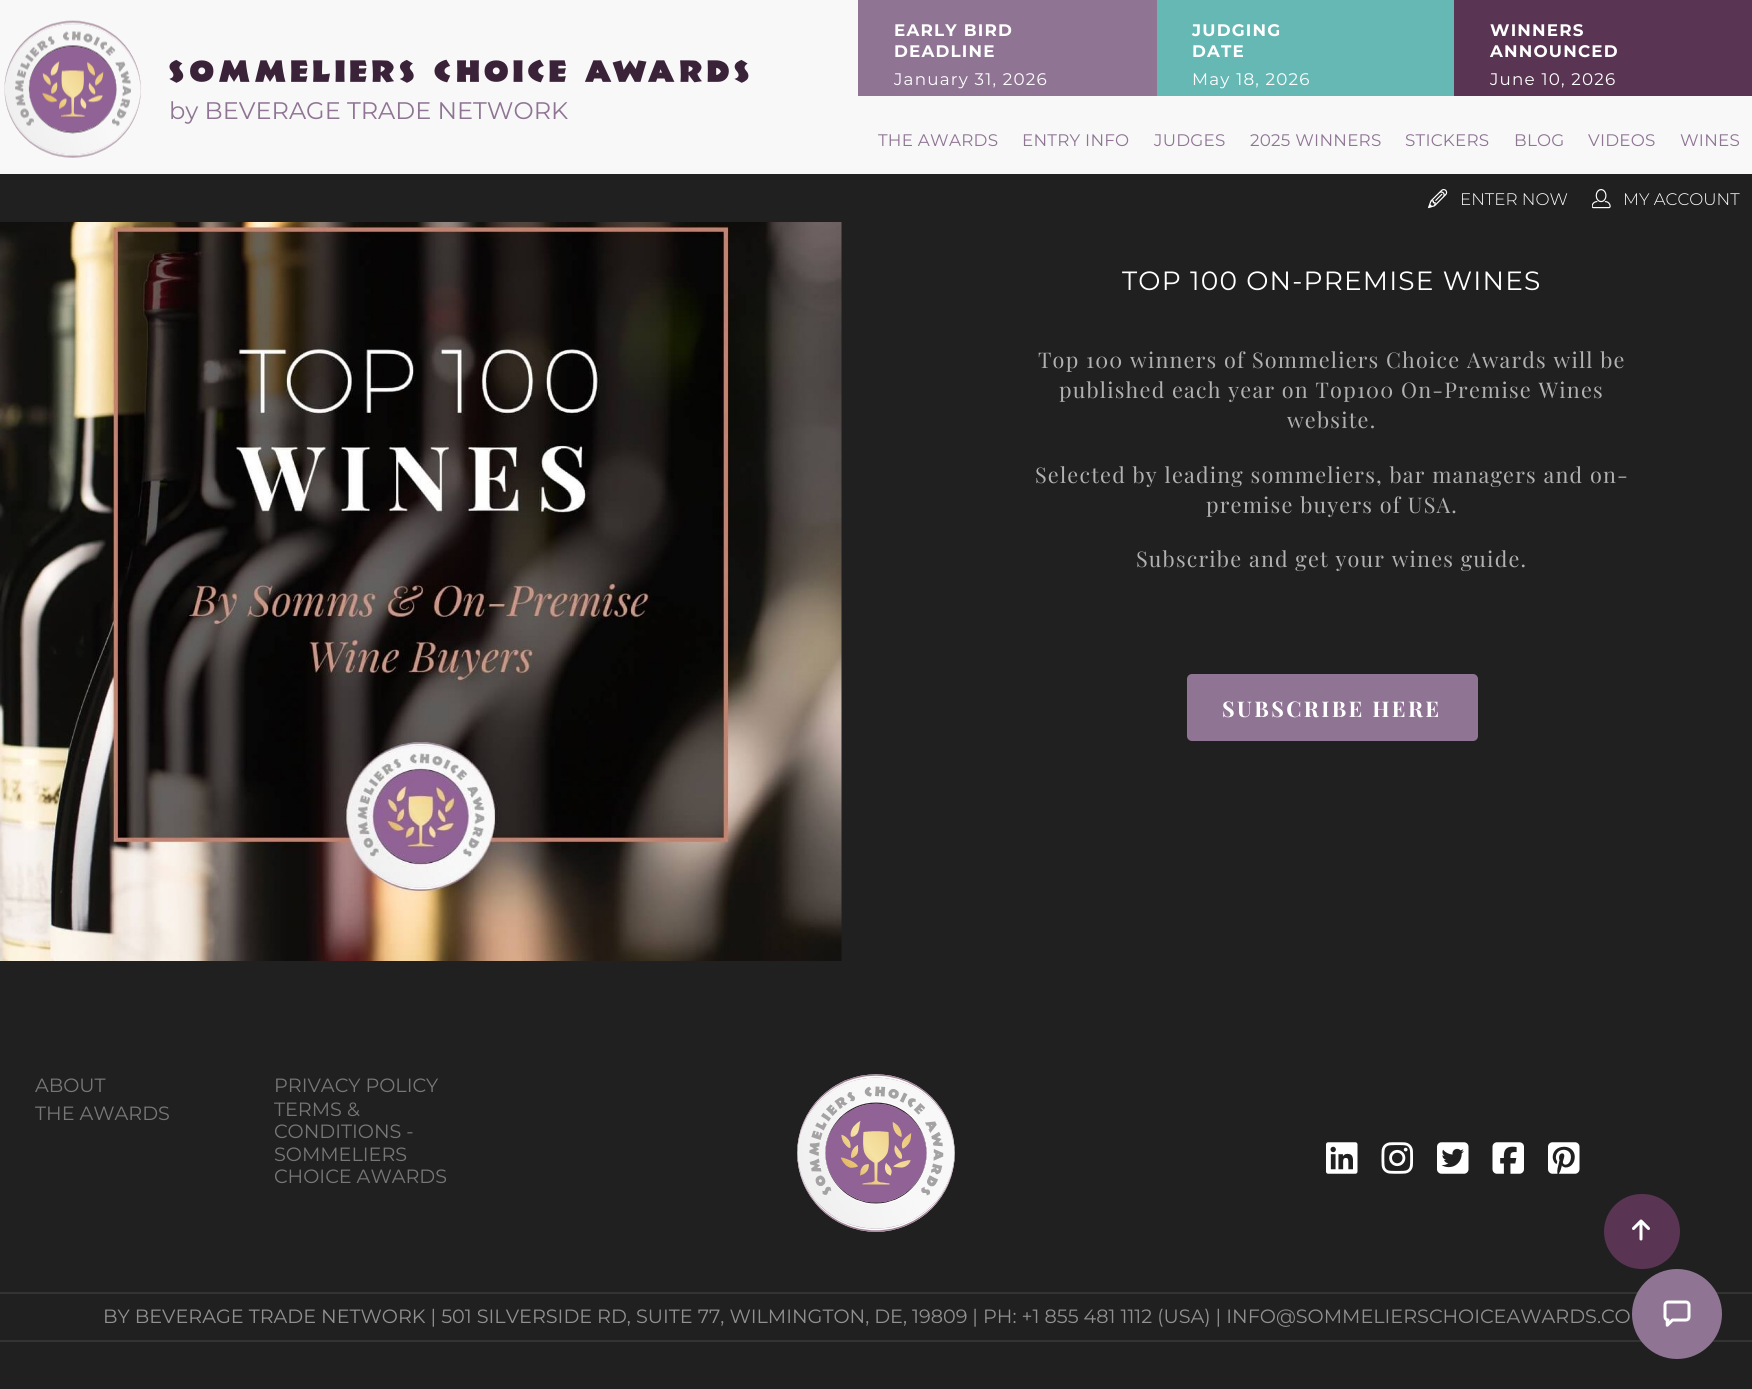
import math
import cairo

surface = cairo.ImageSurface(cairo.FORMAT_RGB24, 1752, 1389)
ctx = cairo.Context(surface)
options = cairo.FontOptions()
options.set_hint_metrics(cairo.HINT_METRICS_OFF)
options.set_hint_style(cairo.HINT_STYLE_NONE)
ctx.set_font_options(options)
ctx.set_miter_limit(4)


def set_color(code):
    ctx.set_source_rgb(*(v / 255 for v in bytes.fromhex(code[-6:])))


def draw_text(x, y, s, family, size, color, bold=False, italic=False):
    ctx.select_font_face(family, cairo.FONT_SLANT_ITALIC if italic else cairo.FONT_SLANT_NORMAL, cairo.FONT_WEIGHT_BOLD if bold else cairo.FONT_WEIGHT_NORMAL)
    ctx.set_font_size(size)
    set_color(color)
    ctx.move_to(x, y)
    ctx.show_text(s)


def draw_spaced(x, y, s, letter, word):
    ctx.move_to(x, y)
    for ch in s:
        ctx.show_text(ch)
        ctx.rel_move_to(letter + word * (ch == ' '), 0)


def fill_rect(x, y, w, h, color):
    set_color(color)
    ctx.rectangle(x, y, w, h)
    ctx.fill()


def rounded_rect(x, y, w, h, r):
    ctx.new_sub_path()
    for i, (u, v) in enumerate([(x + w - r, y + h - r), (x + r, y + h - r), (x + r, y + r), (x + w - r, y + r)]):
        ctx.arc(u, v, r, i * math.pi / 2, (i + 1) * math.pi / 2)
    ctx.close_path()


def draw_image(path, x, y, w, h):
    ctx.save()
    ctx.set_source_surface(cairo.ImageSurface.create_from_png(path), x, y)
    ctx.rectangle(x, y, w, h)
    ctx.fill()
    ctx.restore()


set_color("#202020")
ctx.paint()
fill_rect(0, 0, 1752, 174, "#f8f8f8")
fill_rect(858, 0, 299, 96, "#8f7494")
ctx.select_font_face("Montserrat", cairo.FONT_SLANT_NORMAL, cairo.FONT_WEIGHT_BOLD)
ctx.set_font_size(16.75)
set_color("#ffffff")
draw_spaced(894, 36, "EARLY BIRD", 1.2, 0)
draw_spaced(894, 57, "DEADLINE", 1.2, 0)
ctx.select_font_face("Montserrat")
draw_spaced(894, 85, "January 31, 2026", 1.2, 0)
fill_rect(1157, 0, 297, 96, "#65b8b4")
ctx.select_font_face("Montserrat", cairo.FONT_SLANT_NORMAL, cairo.FONT_WEIGHT_BOLD)
set_color("#ffffff")
draw_spaced(1192, 36, "JUDGING", 1.2, 0)
draw_spaced(1192, 57, "DATE", 1.2, 0)
ctx.select_font_face("Montserrat")
draw_spaced(1192, 85, "May 18, 2026", 1.2, 0)
fill_rect(1454, 0, 298, 96, "#593453")
ctx.select_font_face("Montserrat", cairo.FONT_SLANT_NORMAL, cairo.FONT_WEIGHT_BOLD)
set_color("#ffffff")
draw_spaced(1490, 36, "WINNERS", 1.2, 0)
draw_spaced(1490, 57, "ANNOUNCED", 1.2, 0)
ctx.select_font_face("Montserrat")
draw_spaced(1490, 85, "June 10, 2026", 1.2, 0)
draw_image("assets/img1.png", 4, 20, 137, 138)
draw_image("assets/img2.png", 169, 59, 580, 24)
draw_text(169, 119, "by BEVERAGE TRADE NETWORK", "Montserrat", 24, "#8f7494")
ctx.set_font_size(16.75)
draw_spaced(878, 146, "THE AWARDS", 0.25, 0)
draw_spaced(1022, 146, "ENTRY INFO", 0.25, 0)
draw_spaced(1154, 146, "JUDGES", 0.25, 0)
draw_spaced(1250, 146, "2025 WINNERS", 0.25, 0)
draw_spaced(1405, 146, "STICKERS", 0.25, 0)
draw_spaced(1514, 146, "BLOG", 0.25, 0)
draw_spaced(1588, 146, "VIDEOS", 0.25, 0)
draw_spaced(1680, 146, "WINES", 0.25, 0)
draw_image("assets/img3.png", 1428, 189, 20, 20)
draw_text(1460, 205, "ENTER NOW", "Montserrat Light", 16.75, "#ffffff")
draw_image("assets/img4.png", 1592, 189, 19, 20)
draw_text(1623, 205, "MY ACCOUNT", "Montserrat Light", 16.75, "#ffffff")
draw_image("assets/img5.png", 0, 222, 842, 739)
ctx.select_font_face("Montserrat")
ctx.set_font_size(26.4)
draw_spaced(1122, 290, "TOP 100 ON-PREMISE WINES", 1.2, 0)
ctx.select_font_face("Playfair Display")
ctx.set_font_size(21.6)
set_color("#b1b1b1")
draw_spaced(1038, 368, "Top 100 winners of Sommeliers Choice Awards will be", 1.2, 0)
draw_spaced(1059, 398, "published each year on Top100 On-Premise Wines", 1.2, 0)
draw_spaced(1287, 428, "website.", 1.2, 0)
draw_spaced(1035, 483, "Selected by leading sommeliers, bar managers and on-", 1.2, 0)
draw_spaced(1206, 513, "premise buyers of USA.", 1.2, 0)
draw_spaced(1136, 567, "Subscribe and get your wines guide.", 1.2, 0)
set_color("#8f7494")
rounded_rect(1187, 674, 291, 67, 5)
ctx.fill()
ctx.select_font_face("Playfair Display", cairo.FONT_SLANT_NORMAL, cairo.FONT_WEIGHT_BOLD)
set_color("#ffffff")
draw_spaced(1222, 717, "SUBSCRIBE HERE", 2.4, 0)
draw_text(35, 1092, "ABOUT", "Montserrat", 19.2, "#777777")
draw_text(274, 1092, "PRIVACY POLICY", "Montserrat", 19.2, "#777777")
draw_text(35, 1120, "THE AWARDS", "Montserrat", 19.2, "#777777")
draw_text(274, 1116, "TERMS &", "Montserrat", 19.2, "#777777")
draw_text(274, 1138, "CONDITIONS -", "Montserrat", 19.2, "#777777")
draw_text(274, 1161, "SOMMELIERS", "Montserrat", 19.2, "#777777")
draw_text(274, 1183, "CHOICE AWARDS", "Montserrat", 19.2, "#777777")
draw_image("assets/img6.png", 797, 1074, 158, 158)
draw_image("assets/img7.png", 1326, 1142, 32, 32)
draw_image("assets/img8.png", 1381, 1142, 32, 32)
draw_image("assets/img9.png", 1437, 1142, 32, 32)
draw_image("assets/img10.png", 1492, 1142, 32, 32)
draw_image("assets/img11.png", 1548, 1142, 32, 32)
fill_rect(0, 1292, 1752, 2, "#333333")
fill_rect(0, 1340, 1752, 2, "#333333")
draw_text(103, 1323, "BY BEVERAGE TRADE NETWORK | 501 SILVERSIDE RD, SUITE 77, WILMINGTON, DE, 19809 | PH: +1 855 481 1112 (USA) | INFO@SOMMELIERSCHOICEAWARDS.CO", "Montserrat", 19.2, "#919191")
set_color("#593453")
rounded_rect(1604, 1194, 76, 75, 37.5)
ctx.fill()
draw_image("assets/img12.png", 1632, 1219, 18, 22)
set_color("#8f7494")
ctx.arc(1677, 1314, 45, 0, 2 * math.pi)
ctx.fill()
draw_image("assets/img13.png", 1663, 1300, 28, 27)
surface.write_to_png("output.png")
